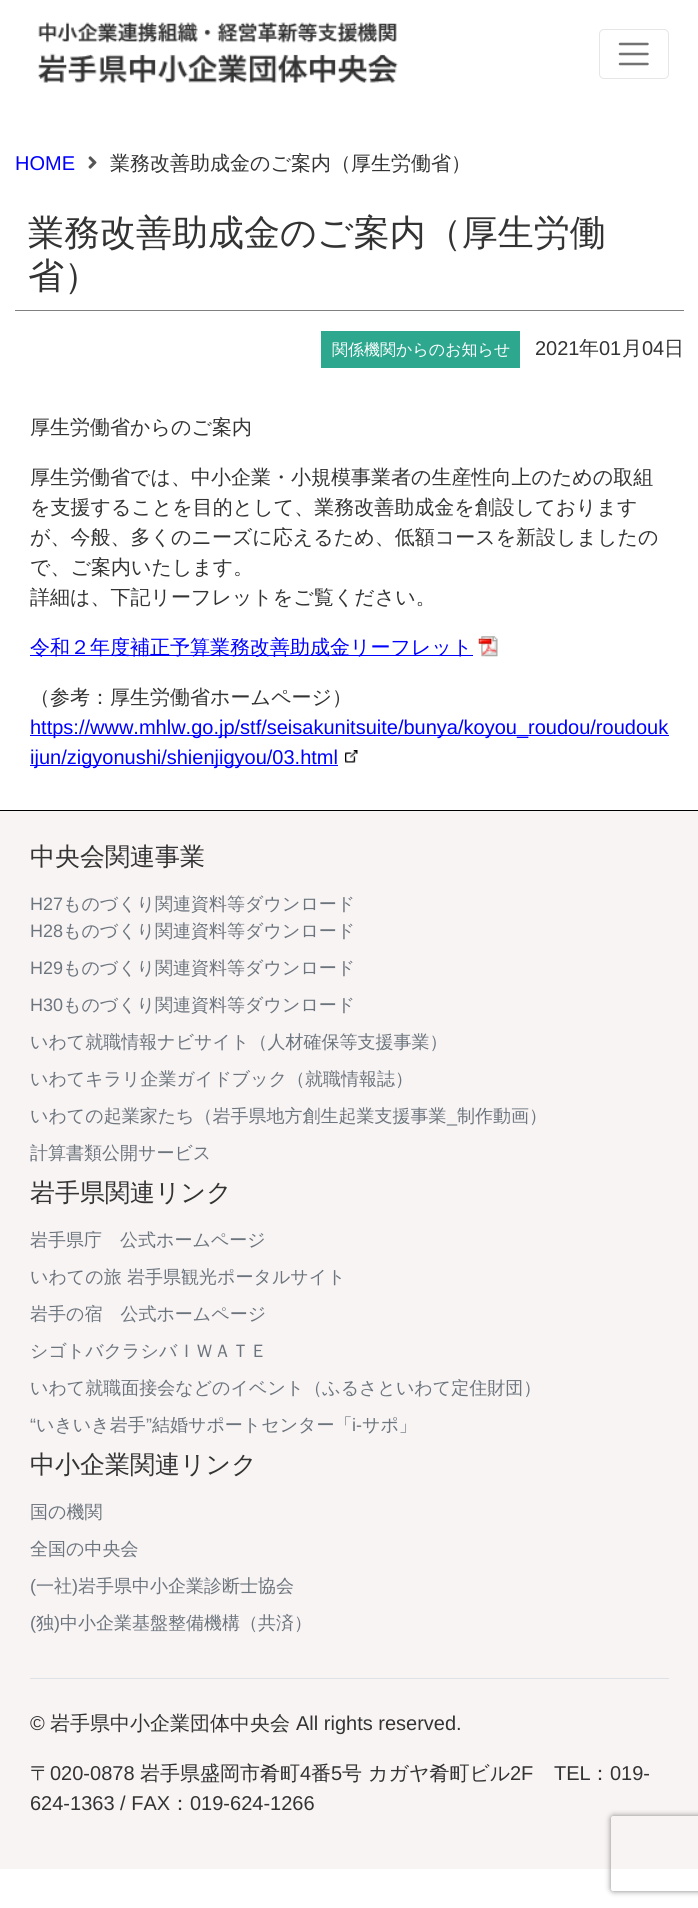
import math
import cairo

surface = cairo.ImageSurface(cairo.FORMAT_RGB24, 698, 1908)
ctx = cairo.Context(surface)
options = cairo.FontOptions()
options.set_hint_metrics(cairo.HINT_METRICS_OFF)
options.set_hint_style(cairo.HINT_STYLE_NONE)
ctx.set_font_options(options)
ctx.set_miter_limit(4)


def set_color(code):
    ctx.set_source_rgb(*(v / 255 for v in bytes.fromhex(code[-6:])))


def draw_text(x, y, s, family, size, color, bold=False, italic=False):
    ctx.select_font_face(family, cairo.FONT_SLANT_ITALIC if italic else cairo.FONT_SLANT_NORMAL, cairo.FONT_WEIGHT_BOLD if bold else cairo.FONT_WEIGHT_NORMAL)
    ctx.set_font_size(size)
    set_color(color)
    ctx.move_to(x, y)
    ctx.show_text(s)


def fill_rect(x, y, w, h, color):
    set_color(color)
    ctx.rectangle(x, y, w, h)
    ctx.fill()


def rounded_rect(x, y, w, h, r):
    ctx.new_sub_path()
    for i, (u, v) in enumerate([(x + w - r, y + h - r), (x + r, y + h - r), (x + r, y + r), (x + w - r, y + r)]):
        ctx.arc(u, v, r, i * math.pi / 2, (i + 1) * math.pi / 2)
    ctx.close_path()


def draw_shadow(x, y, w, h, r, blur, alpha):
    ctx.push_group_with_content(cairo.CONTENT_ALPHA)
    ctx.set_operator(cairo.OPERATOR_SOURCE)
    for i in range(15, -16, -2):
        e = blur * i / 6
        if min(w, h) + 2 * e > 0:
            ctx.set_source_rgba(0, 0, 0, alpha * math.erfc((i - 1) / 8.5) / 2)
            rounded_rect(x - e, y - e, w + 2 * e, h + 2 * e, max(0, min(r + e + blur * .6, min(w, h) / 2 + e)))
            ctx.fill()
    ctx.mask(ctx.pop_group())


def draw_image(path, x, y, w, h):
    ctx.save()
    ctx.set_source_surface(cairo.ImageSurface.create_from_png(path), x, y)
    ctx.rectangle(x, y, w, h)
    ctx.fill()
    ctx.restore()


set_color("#ffffff")
ctx.paint()
draw_image("assets/img1.png", 37, 22, 361, 62)
rounded_rect(599.5, 29.5, 69, 49, 4.5)
set_color("#e6e6e6")
ctx.set_line_width(1)
ctx.stroke()
ctx.new_path()
ctx.move_to(620, 44)
ctx.line_to(647.5, 44)
ctx.move_to(620, 54)
ctx.line_to(647.5, 54)
ctx.move_to(620, 64)
ctx.line_to(647.5, 64)
set_color("#737373")
ctx.set_line_width(2.5)
ctx.set_line_cap(cairo.LINE_CAP_ROUND)
ctx.stroke()
draw_text(15, 170, "HOME", "Liberation Sans", 20, "#0000ff")
draw_image("assets/img2.png", 88, 156, 9, 13)
draw_text(110, 170, "業務改善助成金のご案内（厚生労働省）", "WenQuanYi Zen Hei Medium", 20, "#333333")
fill_rect(15, 310, 669, 1, "#808080")
draw_text(28, 245, "業務改善助成金のご案内（厚生労働", "WenQuanYi Zen Hei Medium", 36, "#333333")
draw_text(28, 288, "省）", "WenQuanYi Zen Hei Medium", 36, "#333333")
fill_rect(321, 331, 199, 37, "#2da88f")
draw_text(332, 355, "関係機関からのお知らせ", "WenQuanYi Zen Hei Medium", 16, "#ffffff")
draw_text(535, 355, "2021", "Liberation Sans", 20, "#333333")
draw_text(579, 355, "年", "WenQuanYi Zen Hei Medium", 20, "#333333")
draw_text(599, 355, "01", "Liberation Sans", 20, "#333333")
draw_text(622, 355, "月", "WenQuanYi Zen Hei Medium", 20, "#333333")
draw_text(642, 355, "04", "Liberation Sans", 20, "#333333")
draw_text(664, 355, "日", "WenQuanYi Zen Hei Medium", 20, "#333333")
draw_text(30, 434, "厚生労働省からのご案内", "WenQuanYi Zen Hei Medium", 20, "#333333")
draw_text(30, 484, "厚生労働省では、中小企業・小規模事業者の生産性向上のための取組", "WenQuanYi Zen Hei Medium", 20, "#333333")
draw_text(30, 514, "を支援することを目的として、業務改善助成金を創設しております", "WenQuanYi Zen Hei Medium", 20, "#333333")
draw_text(30, 544, "が、今般、多くのニーズに応えるため、低額コースを新設しましたの", "WenQuanYi Zen Hei Medium", 20, "#333333")
draw_text(30, 574, "で、ご案内いたします。", "WenQuanYi Zen Hei Medium", 20, "#333333")
draw_text(30, 604, "詳細は、下記リーフレットをご覧ください。", "WenQuanYi Zen Hei Medium", 20, "#333333")
fill_rect(30, 655, 443, 1, "#0000ff")
draw_text(30, 654, "令和２年度補正予算業務改善助成金リーフレット", "WenQuanYi Zen Hei Medium", 20, "#0000ff")
draw_image("assets/img3.png", 478, 636, 20, 21)
draw_text(30, 704, "（参考：厚生労働省ホームページ）", "WenQuanYi Zen Hei Medium", 20, "#333333")
fill_rect(30, 735, 639, 1, "#0000ff")
draw_text(30, 734, "https://www.mhlw.go.jp/stf/seisakunitsuite/bunya/koyou_roudou/roudouk", "Liberation Sans", 20, "#0000ff")
fill_rect(30, 765, 308, 1, "#0000ff")
draw_text(30, 764, "ijun/zigyonushi/shienjigyou/03.html", "Liberation Sans", 20, "#0000ff")
draw_image("assets/img4.png", 345, 750, 13, 13)
fill_rect(0, 811, 698, 1058, "#f9f4f4")
fill_rect(0, 810, 698, 1, "#000000")
draw_text(30, 865, "中央会関連事業", "WenQuanYi Zen Hei Medium", 25, "#333333")
draw_text(30, 910, "H27", "Liberation Sans", 18, "#6c757d")
draw_text(63, 910, "ものづくり関連資料等ダウンロード", "WenQuanYi Zen Hei Medium", 18, "#6c757d")
draw_text(30, 937, "H28", "Liberation Sans", 18, "#6c757d")
draw_text(63, 937, "ものづくり関連資料等ダウンロード", "WenQuanYi Zen Hei Medium", 18, "#6c757d")
draw_text(30, 974, "H29", "Liberation Sans", 18, "#6c757d")
draw_text(63, 974, "ものづくり関連資料等ダウンロード", "WenQuanYi Zen Hei Medium", 18, "#6c757d")
draw_text(30, 1011, "H30", "Liberation Sans", 18, "#6c757d")
draw_text(63, 1011, "ものづくり関連資料等ダウンロード", "WenQuanYi Zen Hei Medium", 18, "#6c757d")
draw_text(30, 1048, "いわて就職情報ナビサイト（人材確保等支援事業）", "WenQuanYi Zen Hei Medium", 18, "#6c757d")
draw_text(30, 1085, "いわてキラリ企業ガイドブック（就職情報誌）", "WenQuanYi Zen Hei Medium", 18, "#6c757d")
draw_text(30, 1122, "いわての起業家たち（岩手県地方創生起業支援事業", "WenQuanYi Zen Hei Medium", 18, "#6c757d")
draw_text(447, 1122, "_", "Liberation Sans", 18, "#6c757d")
draw_text(457, 1122, "制作動画）", "WenQuanYi Zen Hei Medium", 18, "#6c757d")
draw_text(30, 1159, "計算書類公開サービス", "WenQuanYi Zen Hei Medium", 18, "#6c757d")
draw_text(30, 1201, "岩手県関連リンク", "WenQuanYi Zen Hei Medium", 25, "#333333")
draw_text(30, 1246, "岩手県庁　公式ホームページ", "WenQuanYi Zen Hei Medium", 18, "#6c757d")
draw_text(30, 1283, "いわての旅 岩手県観光ポータルサイト", "WenQuanYi Zen Hei Medium", 18, "#6c757d")
draw_text(30, 1320, "岩手の宿　公式ホームページ", "WenQuanYi Zen Hei Medium", 18, "#6c757d")
draw_text(30, 1357, "シゴトバクラシバＩＷＡＴＥ", "WenQuanYi Zen Hei Medium", 18, "#6c757d")
draw_text(30, 1394, "いわて就職面接会などのイベント（ふるさといわて定住財団）", "WenQuanYi Zen Hei Medium", 18, "#6c757d")
draw_text(30, 1431, "“", "Liberation Sans", 18, "#6c757d")
draw_text(36, 1431, "いきいき岩手", "WenQuanYi Zen Hei Medium", 18, "#6c757d")
draw_text(146, 1431, "”", "Liberation Sans", 18, "#6c757d")
draw_text(152, 1431, "結婚サポートセンター「", "WenQuanYi Zen Hei Medium", 18, "#6c757d")
draw_text(352, 1431, "i-", "Liberation Sans", 18, "#6c757d")
draw_text(362, 1431, "サポ」", "WenQuanYi Zen Hei Medium", 18, "#6c757d")
draw_text(30, 1473, "中小企業関連リンク", "WenQuanYi Zen Hei Medium", 25, "#333333")
draw_text(30, 1518, "国の機関", "WenQuanYi Zen Hei Medium", 18, "#6c757d")
draw_text(30, 1555, "全国の中央会", "WenQuanYi Zen Hei Medium", 18, "#6c757d")
draw_text(30, 1592, "(", "Liberation Sans", 18, "#6c757d")
draw_text(36, 1592, "一社", "WenQuanYi Zen Hei Medium", 18, "#6c757d")
draw_text(72, 1592, ")", "Liberation Sans", 18, "#6c757d")
draw_text(78, 1592, "岩手県中小企業診断士協会", "WenQuanYi Zen Hei Medium", 18, "#6c757d")
draw_text(30, 1629, "(", "Liberation Sans", 18, "#6c757d")
draw_text(36, 1629, "独", "WenQuanYi Zen Hei Medium", 18, "#6c757d")
draw_text(54, 1629, ")", "Liberation Sans", 18, "#6c757d")
draw_text(60, 1629, "中小企業基盤整備機構（共済）", "WenQuanYi Zen Hei Medium", 18, "#6c757d")
fill_rect(30, 1678, 639, 1, "#dee2e6")
draw_text(30, 1730, "©", "Liberation Sans", 20, "#333333")
draw_text(50, 1730, "岩手県中小企業団体中央会", "WenQuanYi Zen Hei Medium", 20, "#333333")
draw_text(296, 1730, "All rights reserved.", "Liberation Sans", 20, "#333333")
draw_text(30, 1780, "〒", "WenQuanYi Zen Hei Medium", 20, "#333333")
draw_text(50, 1780, "020-0878", "Liberation Sans", 20, "#333333")
draw_text(140, 1780, "岩手県盛岡市肴町", "WenQuanYi Zen Hei Medium", 20, "#333333")
draw_text(300, 1780, "4", "Liberation Sans", 20, "#333333")
draw_text(311, 1780, "番", "WenQuanYi Zen Hei Medium", 20, "#333333")
draw_text(331, 1780, "5", "Liberation Sans", 20, "#333333")
draw_text(342, 1780, "号 カガヤ肴町ビル", "WenQuanYi Zen Hei Medium", 20, "#333333")
draw_text(510, 1780, "2F", "Liberation Sans", 20, "#333333")
draw_text(554, 1780, "TEL", "Liberation Sans", 20, "#333333")
draw_text(590, 1780, "：", "WenQuanYi Zen Hei Medium", 20, "#333333")
draw_text(610, 1780, "019-", "Liberation Sans", 20, "#333333")
draw_text(30, 1810, "624-1363 / FAX", "Liberation Sans", 20, "#333333")
draw_text(170, 1810, "：", "WenQuanYi Zen Hei Medium", 20, "#333333")
draw_text(190, 1810, "019-624-1266", "Liberation Sans", 20, "#333333")
ctx.save()
ctx.set_fill_rule(cairo.FILL_RULE_EVEN_ODD)
ctx.new_path()
ctx.move_to(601, 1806)
ctx.line_to(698, 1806)
ctx.line_to(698, 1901)
ctx.line_to(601, 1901)
ctx.close_path()
ctx.move_to(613.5, 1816)
ctx.line_to(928.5, 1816)
ctx.curve_to(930, 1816, 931, 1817, 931, 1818.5)
ctx.line_to(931, 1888.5)
ctx.curve_to(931, 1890, 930, 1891, 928.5, 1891)
ctx.line_to(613.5, 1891)
ctx.curve_to(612, 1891, 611, 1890, 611, 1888.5)
ctx.line_to(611, 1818.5)
ctx.curve_to(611, 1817, 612, 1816, 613.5, 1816)
ctx.close_path()
ctx.clip()
set_color("#808080")
draw_shadow(611, 1816, 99, 75, 2.5, 3, 1)
ctx.restore()
surface.write_to_png("output.png")
